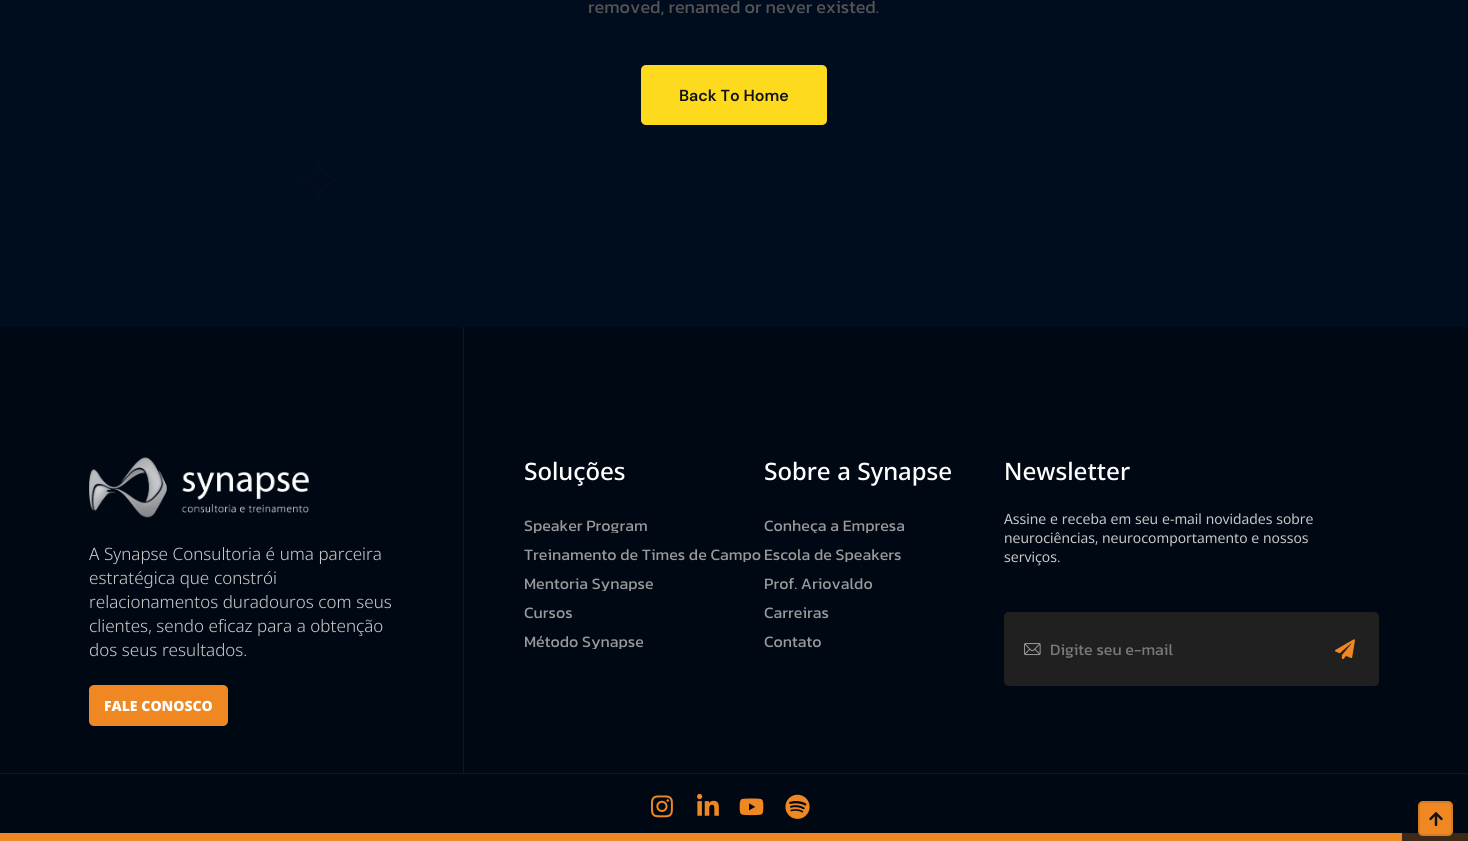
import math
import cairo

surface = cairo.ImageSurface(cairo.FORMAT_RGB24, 1468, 841)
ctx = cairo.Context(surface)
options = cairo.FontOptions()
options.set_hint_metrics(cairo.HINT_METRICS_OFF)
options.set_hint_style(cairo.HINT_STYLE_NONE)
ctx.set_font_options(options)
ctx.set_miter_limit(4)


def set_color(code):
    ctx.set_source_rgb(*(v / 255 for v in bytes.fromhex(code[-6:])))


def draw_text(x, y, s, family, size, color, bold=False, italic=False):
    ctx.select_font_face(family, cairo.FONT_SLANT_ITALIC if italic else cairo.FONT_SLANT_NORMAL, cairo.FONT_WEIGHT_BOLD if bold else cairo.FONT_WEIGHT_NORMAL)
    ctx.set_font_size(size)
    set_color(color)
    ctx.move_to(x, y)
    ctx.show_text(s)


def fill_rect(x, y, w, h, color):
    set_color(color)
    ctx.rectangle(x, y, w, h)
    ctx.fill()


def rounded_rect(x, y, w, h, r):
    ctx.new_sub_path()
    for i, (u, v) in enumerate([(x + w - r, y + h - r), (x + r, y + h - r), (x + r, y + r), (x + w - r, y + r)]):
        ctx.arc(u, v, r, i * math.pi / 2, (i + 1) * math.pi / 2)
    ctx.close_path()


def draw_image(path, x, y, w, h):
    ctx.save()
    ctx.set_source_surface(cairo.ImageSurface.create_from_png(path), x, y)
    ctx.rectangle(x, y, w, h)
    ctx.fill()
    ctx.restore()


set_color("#000d1f")
ctx.paint()
draw_text(588, 13, "removed, renamed or never existed.", "Kanit", 18, "#555555")
set_color("#feda1f")
rounded_rect(641, 65, 186, 60, 5)
ctx.fill()
draw_text(679, 101, "Back To Home", "DM Sans SemiBold", 16, "#121212")
ctx.new_path()
ctx.move_to(319, 197)
ctx.curve_to(316.5, 189, 310, 182.5, 302, 180)
ctx.curve_to(310, 177, 316.5, 170.5, 319, 163)
ctx.curve_to(321.5, 170.5, 328, 177, 336, 180)
ctx.curve_to(328, 182.5, 321.5, 189, 319, 197)
ctx.close_path()
set_color("#0a1018")
ctx.set_line_width(1)
ctx.stroke()
fill_rect(0, 327, 1468, 506, "#000814")
draw_image("assets/img1.png", 89, 457, 220, 61)
draw_text(89, 560, "A Synapse Consultoria é uma parceira", "Noto Sans Hebrew Light", 17, "#c9c9c9")
draw_text(89, 584, "estratégica que constrói", "Noto Sans Hebrew Light", 17, "#c9c9c9")
draw_text(89, 608, "relacionamentos duradouros com seus", "Noto Sans Hebrew Light", 17, "#c9c9c9")
draw_text(89, 632, "clientes, sendo eficaz para a obtenção", "Noto Sans Hebrew Light", 17, "#c9c9c9")
draw_text(89, 656, "dos seus resultados.", "Noto Sans Hebrew Light", 17, "#c9c9c9")
set_color("#ef8823")
rounded_rect(89, 685, 139, 41, 5)
ctx.fill()
draw_text(104, 711, "FALE CONOSCO", "Noto Sans Hebrew Black", 14, "#ffffff")
fill_rect(463, 327, 1, 446, "#0f1721")
draw_text(524, 480, "Soluções", "Noto Sans Hebrew Medium", 24, "#ffffff")
ctx.save()
ctx.rectangle(524, 517, 124, 16)
ctx.clip()
draw_text(524, 531, "Speaker Program", "Kanit", 16, "#999999")
ctx.restore()
ctx.save()
ctx.rectangle(524, 546, 237, 16)
ctx.clip()
draw_text(524, 560, "Treinamento de Times de Campo", "Kanit", 16, "#999999")
ctx.restore()
ctx.save()
ctx.rectangle(524, 575, 130, 16)
ctx.clip()
draw_text(524, 589, "Mentoria Synapse", "Kanit", 16, "#999999")
ctx.restore()
draw_text(524, 618, "Cursos", "Kanit", 16, "#999999")
ctx.save()
ctx.rectangle(524, 633, 120, 16)
ctx.clip()
draw_text(524, 647, "Método Synapse", "Kanit", 16, "#999999")
ctx.restore()
draw_text(764, 480, "Sobre a Synapse", "Noto Sans Hebrew Medium", 24, "#ffffff")
ctx.save()
ctx.rectangle(764, 517, 141, 16)
ctx.clip()
draw_text(764, 531, "Conheça a Empresa", "Kanit", 16, "#999999")
ctx.restore()
ctx.save()
ctx.rectangle(764, 546, 137, 16)
ctx.clip()
draw_text(764, 560, "Escola de Speakers", "Kanit", 16, "#999999")
ctx.restore()
draw_text(764, 589, "Prof. Ariovaldo", "Kanit", 16, "#999999")
draw_text(764, 618, "Carreiras", "Kanit", 16, "#999999")
draw_text(764, 647, "Contato", "Kanit", 16, "#999999")
draw_text(1004, 480, "Newsletter", "Noto Sans Hebrew Medium", 24, "#ffffff")
draw_text(1004, 524, "Assine e receba em seu e-mail novidades sobre", "Noto Sans Hebrew", 14, "#c9c9c9")
draw_text(1004, 543, "neurociências, neurocomportamento e nossos", "Noto Sans Hebrew", 14, "#c9c9c9")
draw_text(1004, 562, "serviços.", "Noto Sans Hebrew", 14, "#c9c9c9")
set_color("#202020")
ctx.new_path()
ctx.move_to(1009, 612)
ctx.line_to(1046, 612)
ctx.line_to(1046, 686)
ctx.line_to(1009, 686)
ctx.curve_to(1006, 686, 1004, 684, 1004, 681)
ctx.line_to(1004, 617)
ctx.curve_to(1004, 614, 1006, 612, 1009, 612)
ctx.close_path()
ctx.fill()
draw_image("assets/img2.png", 1024, 643, 17, 13)
fill_rect(1046, 612, 277, 74, "#202020")
draw_text(1050, 655, "Digite seu e-mail", "Kanit", 16, "#7a7a7a")
set_color("#202020")
ctx.new_path()
ctx.move_to(1323, 612)
ctx.line_to(1374, 612)
ctx.curve_to(1377, 612, 1379, 614, 1379, 617)
ctx.line_to(1379, 681)
ctx.curve_to(1379, 684, 1377, 686, 1374, 686)
ctx.line_to(1323, 686)
ctx.close_path()
ctx.fill()
draw_image("assets/img3.png", 1335, 639, 20, 20)
fill_rect(0, 773, 1468, 1, "#0f1721")
draw_image("assets/img4.png", 651, 795, 22, 23)
draw_image("assets/img5.png", 697, 794, 22, 22)
draw_image("assets/img6.png", 739, 798, 25, 18)
draw_image("assets/img7.png", 785, 794, 25, 25)
fill_rect(1402, 833, 66, 8, "#3e2918")
set_color("#ef8823")
rounded_rect(1418, 801, 35, 35, 5)
ctx.fill()
rounded_rect(1419, 802, 33, 33, 4)
ctx.set_source_rgba(0, 0, 0, 0.1)
ctx.set_line_width(2)
ctx.stroke()
draw_image("assets/img8.png", 1429, 812, 14, 14)
fill_rect(0, 833, 1402, 8, "#ef8823")
surface.write_to_png("output.png")
